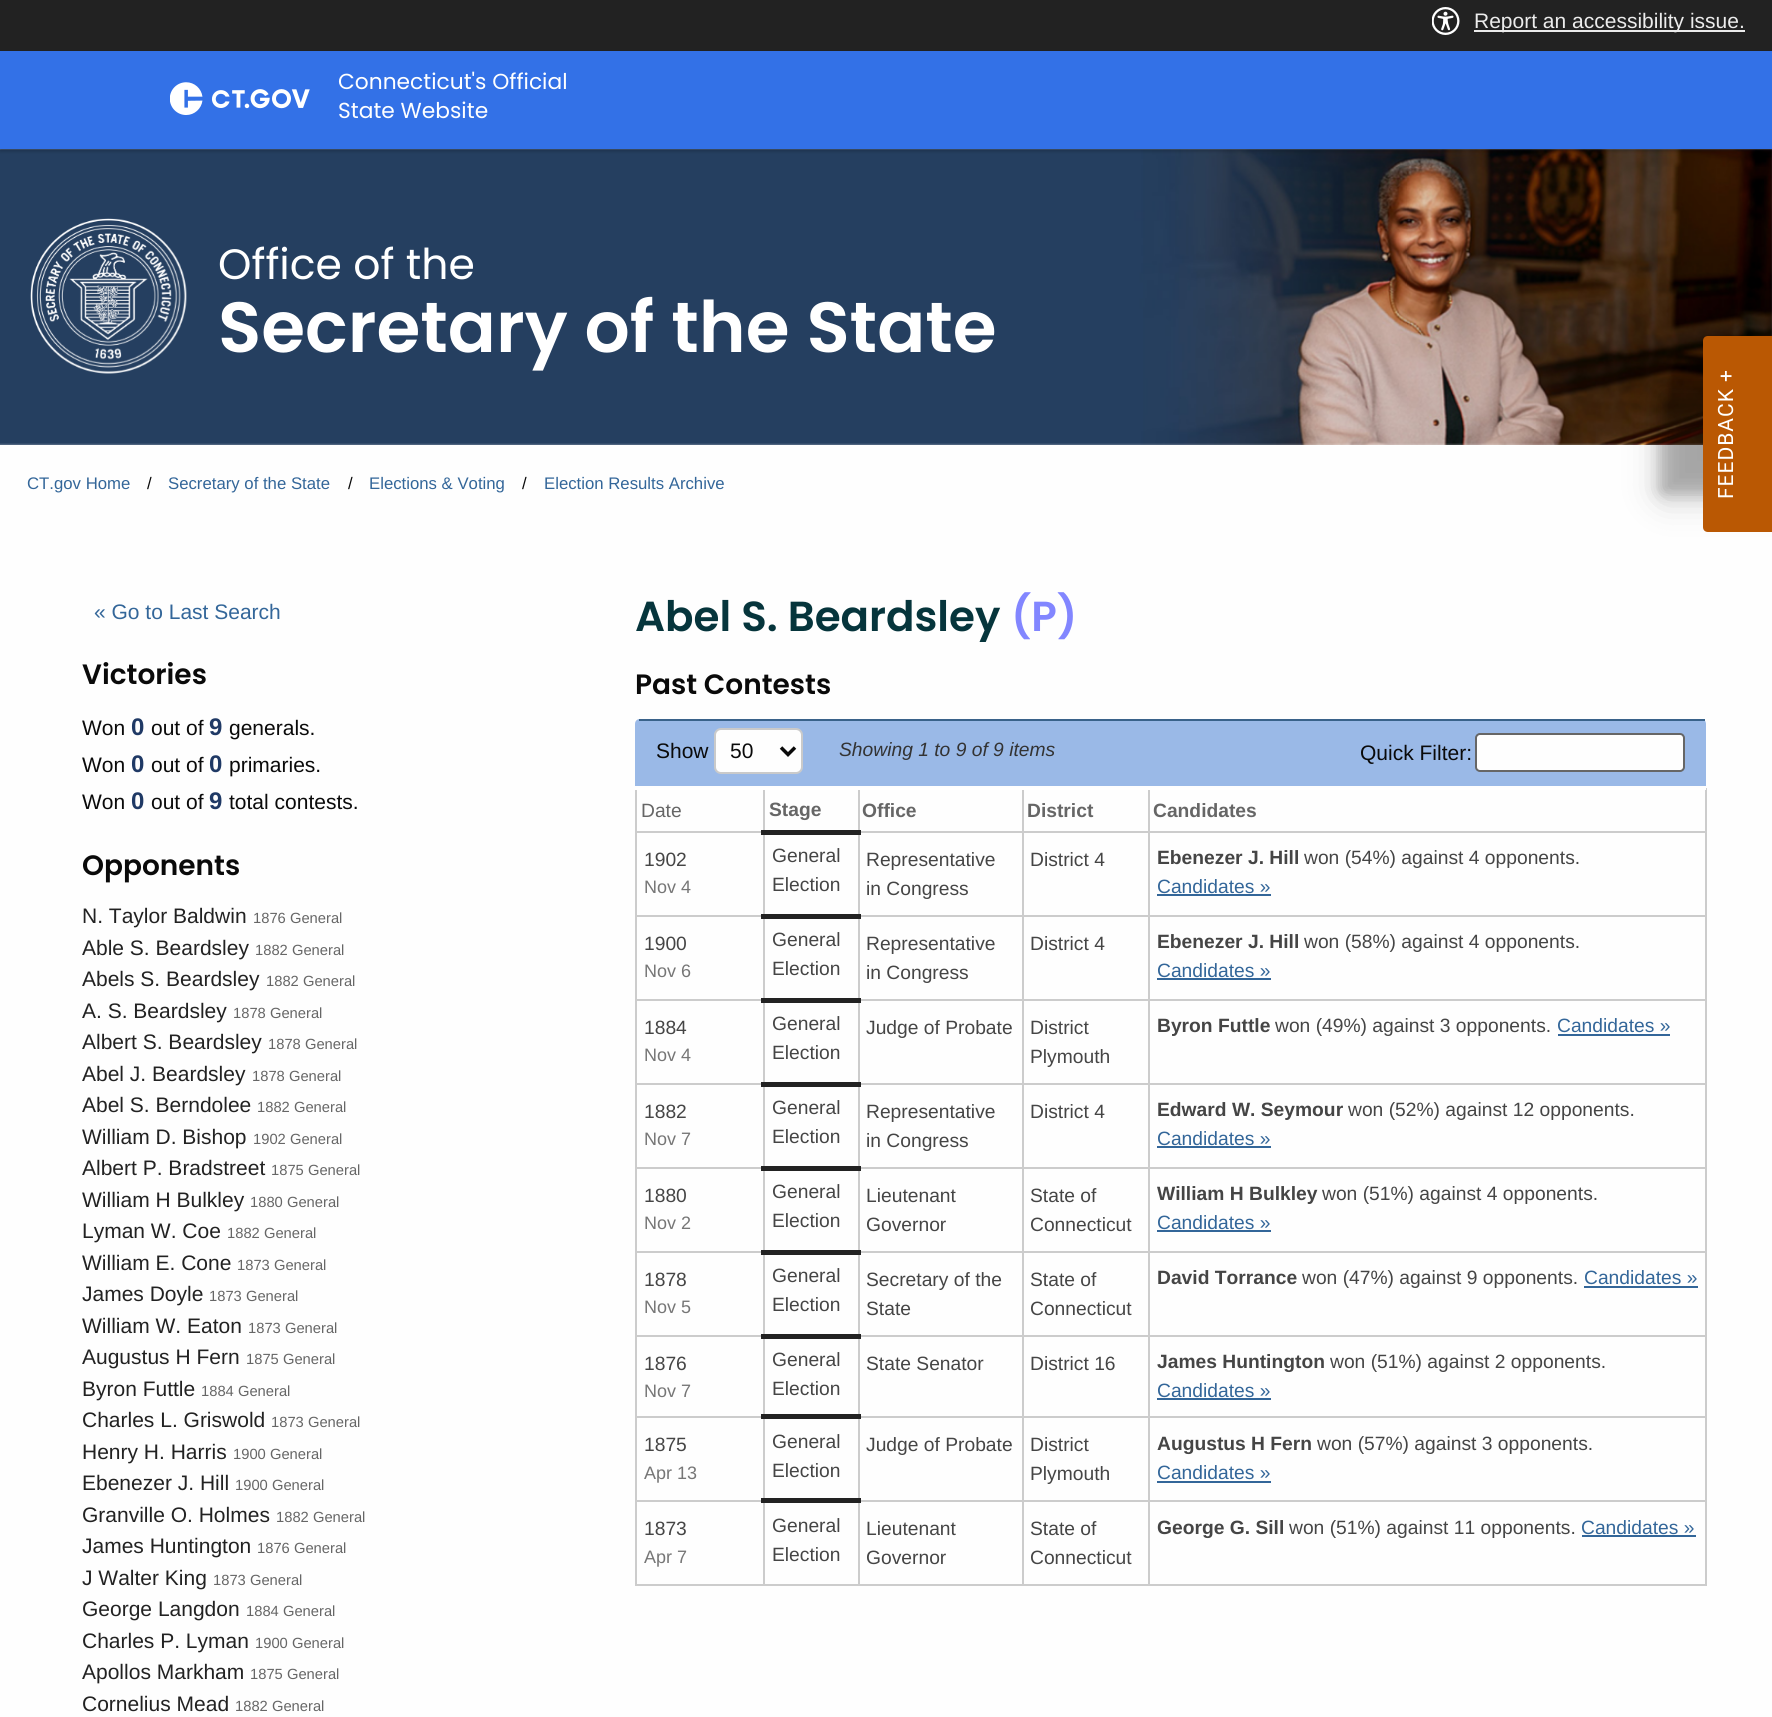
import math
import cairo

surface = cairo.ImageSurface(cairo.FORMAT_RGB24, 1772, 1717)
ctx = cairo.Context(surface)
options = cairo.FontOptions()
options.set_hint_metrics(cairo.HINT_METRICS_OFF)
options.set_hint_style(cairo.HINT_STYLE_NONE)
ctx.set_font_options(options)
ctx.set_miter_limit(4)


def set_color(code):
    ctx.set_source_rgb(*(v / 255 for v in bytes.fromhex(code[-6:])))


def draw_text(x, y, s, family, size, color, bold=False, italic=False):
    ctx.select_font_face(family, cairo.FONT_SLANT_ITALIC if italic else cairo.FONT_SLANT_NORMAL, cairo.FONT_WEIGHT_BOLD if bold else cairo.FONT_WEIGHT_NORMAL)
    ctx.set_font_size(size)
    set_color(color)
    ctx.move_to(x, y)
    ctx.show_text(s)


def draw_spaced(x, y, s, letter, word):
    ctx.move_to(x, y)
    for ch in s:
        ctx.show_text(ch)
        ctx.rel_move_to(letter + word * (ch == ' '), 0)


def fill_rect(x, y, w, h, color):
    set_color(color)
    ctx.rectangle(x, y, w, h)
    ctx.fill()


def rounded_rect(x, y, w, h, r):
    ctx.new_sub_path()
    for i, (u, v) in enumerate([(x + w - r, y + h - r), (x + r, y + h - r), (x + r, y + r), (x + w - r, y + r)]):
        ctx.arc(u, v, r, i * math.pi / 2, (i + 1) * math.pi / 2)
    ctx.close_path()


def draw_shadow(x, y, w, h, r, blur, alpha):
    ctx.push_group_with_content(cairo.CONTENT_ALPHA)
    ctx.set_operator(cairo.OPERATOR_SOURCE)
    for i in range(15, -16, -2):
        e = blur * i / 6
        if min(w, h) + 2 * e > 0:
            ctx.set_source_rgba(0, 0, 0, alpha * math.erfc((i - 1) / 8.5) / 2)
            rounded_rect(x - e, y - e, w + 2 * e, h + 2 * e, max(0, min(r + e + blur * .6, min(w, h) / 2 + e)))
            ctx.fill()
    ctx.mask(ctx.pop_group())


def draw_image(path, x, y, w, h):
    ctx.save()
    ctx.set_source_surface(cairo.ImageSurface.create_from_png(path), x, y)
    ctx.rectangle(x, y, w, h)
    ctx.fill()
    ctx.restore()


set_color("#222222")
ctx.paint()
draw_image("assets/img1.png", 1432, 7, 28, 28)
fill_rect(1474, 30, 271, 2, "#ececec")
draw_text(1474, 28, "Report an accessibility issue.", "Liberation Sans", 21, "#ececec")
fill_rect(0, 149, 1772, 1568, "#fefefe")
draw_image("assets/img3.png", 0, 149, 1772, 296)
set_color("#000000")
draw_shadow(0, 53, 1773, 98, 0, 2, 0.24)
fill_rect(0, 51, 1772, 98, "#3371e7")
draw_image("assets/img2.png", 170, 82, 140, 33)
draw_text(338, 89, "Connecticut's Official", "Poppins", 21.75, "#ffffff")
draw_text(338, 118, "State Website", "Poppins", 21.75, "#ffffff")
draw_image("assets/img4.png", 30, 218, 157, 156)
draw_text(218, 279, "Office of the", "Poppins", 42.5, "#ffffff")
draw_text(218, 352, "Secretary of the State", "Poppins SemiBold", 71, "#ffffff")
draw_text(27, 489, "CT.gov Home", "Liberation Sans", 16.75, "#336699")
draw_text(147, 489, "/", "Liberation Sans", 16.75, "#0a0a0a")
draw_text(168, 489, "Secretary of the State", "Liberation Sans", 16.75, "#336699")
draw_text(348, 489, "/", "Liberation Sans", 16.75, "#0a0a0a")
draw_text(369, 489, "Elections & Voting", "Liberation Sans", 16.75, "#336699")
draw_text(522, 489, "/", "Liberation Sans", 16.75, "#0a0a0a")
draw_text(544, 489, "Election Results Archive", "Liberation Sans", 16.75, "#336699")
draw_text(94, 619, "« Go to Last Search", "Liberation Sans", 21, "#336699")
draw_text(82, 684, "Victories", "Poppins SemiBold", 28, "#0a0a0a")
draw_text(82, 735, "Won", "Liberation Sans", 21, "#0a0a0a")
draw_text(131, 735, "0", "Liberation Sans", 24, "#1f3965", bold=True)
draw_text(151, 735, "out of", "Liberation Sans", 21, "#0a0a0a")
draw_text(209, 735, "9", "Liberation Sans", 24, "#1f3965", bold=True)
draw_text(229, 735, "generals.", "Liberation Sans", 21, "#0a0a0a")
draw_text(82, 772, "Won", "Liberation Sans", 21, "#0a0a0a")
draw_text(131, 772, "0", "Liberation Sans", 24, "#1f3965", bold=True)
draw_text(151, 772, "out of", "Liberation Sans", 21, "#0a0a0a")
draw_text(209, 772, "0", "Liberation Sans", 24, "#1f3965", bold=True)
draw_text(229, 772, "primaries.", "Liberation Sans", 21, "#0a0a0a")
draw_text(82, 809, "Won", "Liberation Sans", 21, "#0a0a0a")
draw_text(131, 809, "0", "Liberation Sans", 24, "#1f3965", bold=True)
draw_text(151, 809, "out of", "Liberation Sans", 21, "#0a0a0a")
draw_text(209, 809, "9", "Liberation Sans", 24, "#1f3965", bold=True)
draw_text(229, 809, "total contests.", "Liberation Sans", 21, "#0a0a0a")
draw_text(82, 875, "Opponents", "Poppins SemiBold", 28, "#0a0a0a")
draw_text(82, 923, "N. Taylor Baldwin", "Liberation Sans", 21, "#222222")
draw_text(253, 923, "1876 General", "Liberation Sans", 14.75, "#666666")
draw_text(82, 955, "Able S. Beardsley", "Liberation Sans", 21, "#222222")
draw_text(255, 955, "1882 General", "Liberation Sans", 14.75, "#666666")
draw_text(82, 986, "Abels S. Beardsley", "Liberation Sans", 21, "#222222")
draw_text(266, 986, "1882 General", "Liberation Sans", 14.75, "#666666")
draw_text(82, 1018, "A. S. Beardsley", "Liberation Sans", 21, "#222222")
draw_text(233, 1018, "1878 General", "Liberation Sans", 14.75, "#666666")
draw_text(82, 1049, "Albert S. Beardsley", "Liberation Sans", 21, "#222222")
draw_text(268, 1049, "1878 General", "Liberation Sans", 14.75, "#666666")
draw_text(82, 1081, "Abel J. Beardsley", "Liberation Sans", 21, "#222222")
draw_text(252, 1081, "1878 General", "Liberation Sans", 14.75, "#666666")
draw_text(82, 1112, "Abel S. Berndolee", "Liberation Sans", 21, "#222222")
draw_text(257, 1112, "1882 General", "Liberation Sans", 14.75, "#666666")
draw_text(82, 1144, "William D. Bishop", "Liberation Sans", 21, "#222222")
draw_text(253, 1144, "1902 General", "Liberation Sans", 14.75, "#666666")
draw_text(82, 1175, "Albert P. Bradstreet", "Liberation Sans", 21, "#222222")
draw_text(271, 1175, "1875 General", "Liberation Sans", 14.75, "#666666")
draw_text(82, 1207, "William H Bulkley", "Liberation Sans", 21, "#222222")
draw_text(250, 1207, "1880 General", "Liberation Sans", 14.75, "#666666")
draw_text(82, 1238, "Lyman W. Coe", "Liberation Sans", 21, "#222222")
draw_text(227, 1238, "1882 General", "Liberation Sans", 14.75, "#666666")
draw_text(82, 1270, "William E. Cone", "Liberation Sans", 21, "#222222")
draw_text(237, 1270, "1873 General", "Liberation Sans", 14.75, "#666666")
draw_text(82, 1301, "James Doyle", "Liberation Sans", 21, "#222222")
draw_text(209, 1301, "1873 General", "Liberation Sans", 14.75, "#666666")
draw_text(82, 1333, "William W. Eaton", "Liberation Sans", 21, "#222222")
draw_text(248, 1333, "1873 General", "Liberation Sans", 14.75, "#666666")
draw_text(82, 1364, "Augustus H Fern", "Liberation Sans", 21, "#222222")
draw_text(246, 1364, "1875 General", "Liberation Sans", 14.75, "#666666")
draw_text(82, 1396, "Byron Futtle", "Liberation Sans", 21, "#222222")
draw_text(201, 1396, "1884 General", "Liberation Sans", 14.75, "#666666")
draw_text(82, 1427, "Charles L. Griswold", "Liberation Sans", 21, "#222222")
draw_text(271, 1427, "1873 General", "Liberation Sans", 14.75, "#666666")
draw_text(82, 1459, "Henry H. Harris", "Liberation Sans", 21, "#222222")
draw_text(233, 1459, "1900 General", "Liberation Sans", 14.75, "#666666")
draw_text(82, 1490, "Ebenezer J. Hill", "Liberation Sans", 21, "#222222")
draw_text(235, 1490, "1900 General", "Liberation Sans", 14.75, "#666666")
draw_text(82, 1522, "Granville O. Holmes", "Liberation Sans", 21, "#222222")
draw_text(276, 1522, "1882 General", "Liberation Sans", 14.75, "#666666")
draw_text(82, 1553, "James Huntington", "Liberation Sans", 21, "#222222")
draw_text(257, 1553, "1876 General", "Liberation Sans", 14.75, "#666666")
draw_text(82, 1585, "J Walter King", "Liberation Sans", 21, "#222222")
draw_text(213, 1585, "1873 General", "Liberation Sans", 14.75, "#666666")
draw_text(82, 1616, "George Langdon", "Liberation Sans", 21, "#222222")
draw_text(246, 1616, "1884 General", "Liberation Sans", 14.75, "#666666")
draw_text(82, 1648, "Charles P. Lyman", "Liberation Sans", 21, "#222222")
draw_text(255, 1648, "1900 General", "Liberation Sans", 14.75, "#666666")
draw_text(82, 1679, "Apollos Markham", "Liberation Sans", 21, "#222222")
draw_text(250, 1679, "1875 General", "Liberation Sans", 14.75, "#666666")
draw_text(82, 1711, "Cornelius Mead", "Liberation Sans", 21, "#222222")
draw_text(235, 1711, "1882 General", "Liberation Sans", 14.75, "#666666")
draw_text(635, 631, "Abel S. Beardsley", "Poppins SemiBold", 42, "#06353c")
draw_text(1011, 631, "(P)", "Poppins SemiBold", 42, "#8286ff")
draw_text(635, 694, "Past Contests", "Poppins SemiBold", 28, "#0a0a0a")
set_color("#9ab9e7")
ctx.new_path()
ctx.move_to(640, 719)
ctx.line_to(1701, 719)
ctx.curve_to(1704, 719, 1706, 721, 1706, 724)
ctx.line_to(1706, 786)
ctx.line_to(635, 786)
ctx.line_to(635, 724)
ctx.curve_to(635, 721, 637, 719, 640, 719)
ctx.close_path()
ctx.fill()
fill_rect(639, 719, 1066, 2, "#39628a")
draw_text(656, 758, "Show", "Liberation Sans", 21, "#0a0a0a")
set_color("#fefefe")
rounded_rect(715, 729, 87, 44, 6)
ctx.fill_preserve()
set_color("#cacaca")
ctx.stroke()
ctx.new_path()
ctx.move_to(781, 747.5)
ctx.line_to(788, 754.5)
ctx.line_to(795, 747.5)
set_color("#0a0a0a")
ctx.set_line_width(3.5)
ctx.stroke()
draw_text(730, 758, "50", "Liberation Sans", 21, "#0a0a0a")
draw_text(839, 756, "Showing 1 to 9 of 9 items", "Liberation Sans", 19.25, "#333333", italic=True)
draw_text(1360, 760, "Quick Filter:", "Liberation Sans", 21, "#0a0a0a")
set_color("#fefefe")
rounded_rect(1476, 734, 208, 37, 4)
ctx.fill_preserve()
set_color("#666666")
ctx.set_line_width(2)
ctx.stroke()
fill_rect(635, 1584, 1071, 2, "#cccccc")
fill_rect(763, 788, 2, 798, "#cccccc")
fill_rect(635, 1500, 2, 86, "#cccccc")
fill_rect(635, 1500, 130, 2, "#cccccc")
fill_rect(635, 1416, 2, 86, "#cccccc")
fill_rect(635, 1416, 130, 2, "#cccccc")
fill_rect(635, 1335, 2, 83, "#cccccc")
fill_rect(635, 1335, 130, 2, "#cccccc")
fill_rect(635, 1251, 2, 86, "#cccccc")
fill_rect(635, 1251, 130, 2, "#cccccc")
fill_rect(635, 1167, 2, 86, "#cccccc")
fill_rect(635, 1167, 130, 2, "#cccccc")
fill_rect(635, 1083, 2, 86, "#cccccc")
fill_rect(635, 1083, 130, 2, "#cccccc")
fill_rect(635, 999, 2, 86, "#cccccc")
fill_rect(635, 999, 130, 2, "#cccccc")
fill_rect(635, 915, 2, 86, "#cccccc")
fill_rect(635, 915, 130, 2, "#cccccc")
fill_rect(635, 831, 2, 86, "#cccccc")
fill_rect(635, 831, 130, 2, "#cccccc")
fill_rect(635, 788, 2, 45, "#cccccc")
fill_rect(1148, 1500, 2, 86, "#cccccc")
fill_rect(1705, 788, 2, 798, "#cccccc")
fill_rect(1148, 1500, 558, 2, "#cccccc")
fill_rect(1148, 1416, 2, 86, "#cccccc")
fill_rect(1148, 1416, 558, 2, "#cccccc")
fill_rect(1148, 1335, 2, 83, "#cccccc")
fill_rect(1148, 1335, 558, 2, "#cccccc")
fill_rect(1148, 1251, 2, 86, "#cccccc")
fill_rect(1148, 1251, 558, 2, "#cccccc")
fill_rect(1148, 1167, 2, 86, "#cccccc")
fill_rect(1148, 1167, 558, 2, "#cccccc")
fill_rect(1148, 1083, 2, 86, "#cccccc")
fill_rect(1148, 1083, 558, 2, "#cccccc")
fill_rect(1148, 999, 2, 86, "#cccccc")
fill_rect(1148, 999, 558, 2, "#cccccc")
fill_rect(1148, 915, 2, 86, "#cccccc")
fill_rect(1148, 915, 558, 2, "#cccccc")
fill_rect(1148, 831, 2, 86, "#cccccc")
fill_rect(1148, 831, 558, 2, "#cccccc")
fill_rect(1148, 788, 2, 45, "#cccccc")
fill_rect(1022, 1500, 2, 86, "#cccccc")
fill_rect(1022, 1500, 128, 2, "#cccccc")
fill_rect(1022, 1416, 2, 86, "#cccccc")
fill_rect(1022, 1416, 128, 2, "#cccccc")
fill_rect(1022, 1335, 2, 83, "#cccccc")
fill_rect(1022, 1335, 128, 2, "#cccccc")
fill_rect(1022, 1251, 2, 86, "#cccccc")
fill_rect(1022, 1251, 128, 2, "#cccccc")
fill_rect(1022, 1167, 2, 86, "#cccccc")
fill_rect(1022, 1167, 128, 2, "#cccccc")
fill_rect(1022, 1083, 2, 86, "#cccccc")
fill_rect(1022, 1083, 128, 2, "#cccccc")
fill_rect(1022, 999, 2, 86, "#cccccc")
fill_rect(1022, 999, 128, 2, "#cccccc")
fill_rect(1022, 915, 2, 86, "#cccccc")
fill_rect(1022, 915, 128, 2, "#cccccc")
fill_rect(1022, 831, 2, 86, "#cccccc")
fill_rect(1022, 831, 128, 2, "#cccccc")
fill_rect(1022, 788, 2, 45, "#cccccc")
fill_rect(858, 1500, 2, 86, "#cccccc")
fill_rect(858, 1500, 166, 2, "#cccccc")
fill_rect(858, 1416, 2, 86, "#cccccc")
fill_rect(858, 1416, 166, 2, "#cccccc")
fill_rect(858, 1335, 2, 83, "#cccccc")
fill_rect(858, 1335, 166, 2, "#cccccc")
fill_rect(858, 1251, 2, 86, "#cccccc")
fill_rect(858, 1251, 166, 2, "#cccccc")
fill_rect(858, 1167, 2, 86, "#cccccc")
fill_rect(858, 1167, 166, 2, "#cccccc")
fill_rect(858, 1083, 2, 86, "#cccccc")
fill_rect(858, 1083, 166, 2, "#cccccc")
fill_rect(858, 999, 2, 86, "#cccccc")
fill_rect(858, 999, 166, 2, "#cccccc")
fill_rect(858, 915, 2, 86, "#cccccc")
fill_rect(858, 915, 166, 2, "#cccccc")
fill_rect(858, 831, 2, 86, "#cccccc")
fill_rect(858, 831, 166, 2, "#cccccc")
fill_rect(858, 788, 2, 45, "#cccccc")
fill_rect(635, 788, 1071, 2, "#ffffff")
draw_text(641, 817, "Date", "Liberation Sans", 19.25, "#666666")
draw_text(769, 816, "Stage", "Liberation Sans", 19.25, "#666666", bold=True)
draw_text(862, 817, "Office", "Liberation Sans", 19.25, "#666666", bold=True)
draw_text(1027, 817, "District", "Liberation Sans", 19.25, "#666666", bold=True)
draw_text(1153, 817, "Candidates", "Liberation Sans", 19.25, "#666666", bold=True)
draw_text(644, 866, "1902", "Liberation Sans", 19.25, "#454545")
draw_text(644, 893, "Nov 4", "Liberation Sans", 18, "#767676")
fill_rect(761, 830, 100, 5, "#222222")
draw_text(772, 862, "General", "Liberation Sans", 19.25, "#454545")
draw_text(772, 891, "Election", "Liberation Sans", 19.25, "#454545")
draw_text(866, 866, "Representative", "Liberation Sans", 19.25, "#454545")
draw_text(866, 895, "in Congress", "Liberation Sans", 19.25, "#454545")
draw_text(1030, 866, "District 4", "Liberation Sans", 19.25, "#454545")
draw_text(1157, 864, "Ebenezer J. Hill", "Liberation Sans", 19.25, "#454545", bold=True)
draw_text(1304, 864, "won (54%) against 4 opponents.", "Liberation Sans", 19.25, "#454545")
draw_text(1157, 893, "Candidates »", "Liberation Sans", 19.25, "#336699")
fill_rect(1157, 894, 114, 2, "#336699")
draw_text(644, 950, "1900", "Liberation Sans", 19.25, "#454545")
draw_text(644, 977, "Nov 6", "Liberation Sans", 18, "#767676")
fill_rect(761, 914, 100, 5, "#222222")
draw_text(772, 946, "General", "Liberation Sans", 19.25, "#454545")
draw_text(772, 975, "Election", "Liberation Sans", 19.25, "#454545")
draw_text(866, 950, "Representative", "Liberation Sans", 19.25, "#454545")
draw_text(866, 979, "in Congress", "Liberation Sans", 19.25, "#454545")
draw_text(1030, 950, "District 4", "Liberation Sans", 19.25, "#454545")
draw_text(1157, 948, "Ebenezer J. Hill", "Liberation Sans", 19.25, "#454545", bold=True)
draw_text(1304, 948, "won (58%) against 4 opponents.", "Liberation Sans", 19.25, "#454545")
draw_text(1157, 977, "Candidates »", "Liberation Sans", 19.25, "#336699")
fill_rect(1157, 978, 114, 2, "#336699")
draw_text(644, 1034, "1884", "Liberation Sans", 19.25, "#454545")
draw_text(644, 1061, "Nov 4", "Liberation Sans", 18, "#767676")
fill_rect(761, 998, 100, 5, "#222222")
draw_text(772, 1030, "General", "Liberation Sans", 19.25, "#454545")
draw_text(772, 1059, "Election", "Liberation Sans", 19.25, "#454545")
draw_text(866, 1034, "Judge of Probate", "Liberation Sans", 19.25, "#454545")
draw_text(1030, 1034, "District", "Liberation Sans", 19.25, "#454545")
draw_text(1030, 1063, "Plymouth", "Liberation Sans", 19.25, "#454545")
draw_text(1157, 1032, "Byron Futtle", "Liberation Sans", 19.25, "#454545", bold=True)
draw_text(1275, 1032, "won (49%) against 3 opponents.", "Liberation Sans", 19.25, "#454545")
draw_text(1557, 1032, "Candidates »", "Liberation Sans", 19.25, "#336699")
fill_rect(1558, 1034, 112, 2, "#336699")
draw_text(644, 1118, "1882", "Liberation Sans", 19.25, "#454545")
draw_text(644, 1145, "Nov 7", "Liberation Sans", 18, "#767676")
fill_rect(761, 1082, 100, 5, "#222222")
draw_text(772, 1114, "General", "Liberation Sans", 19.25, "#454545")
draw_text(772, 1143, "Election", "Liberation Sans", 19.25, "#454545")
draw_text(866, 1118, "Representative", "Liberation Sans", 19.25, "#454545")
draw_text(866, 1147, "in Congress", "Liberation Sans", 19.25, "#454545")
draw_text(1030, 1118, "District 4", "Liberation Sans", 19.25, "#454545")
draw_text(1157, 1116, "Edward W. Seymour", "Liberation Sans", 19.25, "#454545", bold=True)
draw_text(1348, 1116, "won (52%) against 12 opponents.", "Liberation Sans", 19.25, "#454545")
draw_text(1157, 1145, "Candidates »", "Liberation Sans", 19.25, "#336699")
fill_rect(1157, 1146, 114, 2, "#336699")
draw_text(644, 1202, "1880", "Liberation Sans", 19.25, "#454545")
draw_text(644, 1229, "Nov 2", "Liberation Sans", 18, "#767676")
fill_rect(761, 1166, 100, 5, "#222222")
draw_text(772, 1198, "General", "Liberation Sans", 19.25, "#454545")
draw_text(772, 1227, "Election", "Liberation Sans", 19.25, "#454545")
draw_text(866, 1202, "Lieutenant", "Liberation Sans", 19.25, "#454545")
draw_text(866, 1231, "Governor", "Liberation Sans", 19.25, "#454545")
draw_text(1030, 1202, "State of", "Liberation Sans", 19.25, "#454545")
draw_text(1030, 1231, "Connecticut", "Liberation Sans", 19.25, "#454545")
draw_text(1157, 1200, "William H Bulkley", "Liberation Sans", 19.25, "#454545", bold=True)
draw_text(1322, 1200, "won (51%) against 4 opponents.", "Liberation Sans", 19.25, "#454545")
draw_text(1157, 1229, "Candidates »", "Liberation Sans", 19.25, "#336699")
fill_rect(1157, 1230, 114, 2, "#336699")
draw_text(644, 1286, "1878", "Liberation Sans", 19.25, "#454545")
draw_text(644, 1313, "Nov 5", "Liberation Sans", 18, "#767676")
fill_rect(761, 1250, 100, 5, "#222222")
draw_text(772, 1282, "General", "Liberation Sans", 19.25, "#454545")
draw_text(772, 1311, "Election", "Liberation Sans", 19.25, "#454545")
draw_text(866, 1286, "Secretary of the", "Liberation Sans", 19.25, "#454545")
draw_text(866, 1315, "State", "Liberation Sans", 19.25, "#454545")
draw_text(1030, 1286, "State of", "Liberation Sans", 19.25, "#454545")
draw_text(1030, 1315, "Connecticut", "Liberation Sans", 19.25, "#454545")
draw_text(1157, 1284, "David Torrance", "Liberation Sans", 19.25, "#454545", bold=True)
draw_text(1302, 1284, "won (47%) against 9 opponents.", "Liberation Sans", 19.25, "#454545")
draw_text(1584, 1284, "Candidates »", "Liberation Sans", 19.25, "#336699")
fill_rect(1584, 1286, 114, 2, "#336699")
draw_text(644, 1370, "1876", "Liberation Sans", 19.25, "#454545")
draw_text(644, 1397, "Nov 7", "Liberation Sans", 18, "#767676")
fill_rect(761, 1334, 100, 5, "#222222")
draw_text(772, 1366, "General", "Liberation Sans", 19.25, "#454545")
draw_text(772, 1395, "Election", "Liberation Sans", 19.25, "#454545")
draw_text(866, 1370, "State Senator", "Liberation Sans", 19.25, "#454545")
draw_text(1030, 1370, "District 16", "Liberation Sans", 19.25, "#454545")
draw_text(1157, 1368, "James Huntington", "Liberation Sans", 19.25, "#454545", bold=True)
draw_text(1330, 1368, "won (51%) against 2 opponents.", "Liberation Sans", 19.25, "#454545")
draw_text(1157, 1397, "Candidates »", "Liberation Sans", 19.25, "#336699")
fill_rect(1157, 1398, 114, 2, "#336699")
draw_text(644, 1451, "1875", "Liberation Sans", 19.25, "#454545")
draw_text(644, 1479, "Apr 13", "Liberation Sans", 18, "#767676")
fill_rect(761, 1414, 100, 5, "#222222")
draw_text(772, 1448, "General", "Liberation Sans", 19.25, "#454545")
draw_text(772, 1477, "Election", "Liberation Sans", 19.25, "#454545")
draw_text(866, 1451, "Judge of Probate", "Liberation Sans", 19.25, "#454545")
draw_text(1030, 1451, "District", "Liberation Sans", 19.25, "#454545")
draw_text(1030, 1480, "Plymouth", "Liberation Sans", 19.25, "#454545")
draw_text(1157, 1450, "Augustus H Fern", "Liberation Sans", 19.25, "#454545", bold=True)
draw_text(1317, 1450, "won (57%) against 3 opponents.", "Liberation Sans", 19.25, "#454545")
draw_text(1157, 1479, "Candidates »", "Liberation Sans", 19.25, "#336699")
fill_rect(1157, 1481, 114, 2, "#336699")
draw_text(644, 1535, "1873", "Liberation Sans", 19.25, "#454545")
draw_text(644, 1563, "Apr 7", "Liberation Sans", 18, "#767676")
fill_rect(761, 1498, 100, 5, "#222222")
draw_text(772, 1532, "General", "Liberation Sans", 19.25, "#454545")
draw_text(772, 1561, "Election", "Liberation Sans", 19.25, "#454545")
draw_text(866, 1535, "Lieutenant", "Liberation Sans", 19.25, "#454545")
draw_text(866, 1564, "Governor", "Liberation Sans", 19.25, "#454545")
draw_text(1030, 1535, "State of", "Liberation Sans", 19.25, "#454545")
draw_text(1030, 1564, "Connecticut", "Liberation Sans", 19.25, "#454545")
draw_text(1157, 1534, "George G. Sill", "Liberation Sans", 19.25, "#454545", bold=True)
draw_text(1289, 1534, "won (51%) against 11 opponents.", "Liberation Sans", 19.25, "#454545")
draw_text(1581, 1534, "Candidates »", "Liberation Sans", 19.25, "#336699")
fill_rect(1582, 1535, 114, 2, "#336699")
set_color("#000000")
draw_shadow(1659, 390, 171, 109, 5, 17.5, 0.19)
draw_shadow(1659, 387, 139, 108, 5, 7, 0.2)
set_color("#ba5803")
ctx.new_path()
ctx.move_to(1703, 527)
ctx.line_to(1703, 341)
ctx.curve_to(1703, 338, 1705, 336, 1708, 336)
ctx.line_to(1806, 336)
ctx.curve_to(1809, 336, 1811, 338, 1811, 341)
ctx.line_to(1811, 527)
ctx.curve_to(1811, 530, 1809, 532, 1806, 532)
ctx.line_to(1708, 532)
ctx.curve_to(1705, 532, 1703, 530, 1703, 527)
ctx.close_path()
ctx.fill()
ctx.select_font_face("Roboto")
ctx.set_font_size(21)
set_color("#ffffff")
ctx.save()
ctx.translate(1733, 382)
ctx.rotate(-90 * math.pi / 180)
draw_spaced(0, 0, "+", 1, 0)
ctx.restore()
ctx.save()
ctx.translate(1733, 499)
ctx.rotate(-90 * math.pi / 180)
draw_spaced(0, 0, "FEEDBACK", 1, 0)
ctx.restore()
surface.write_to_png("output.png")
